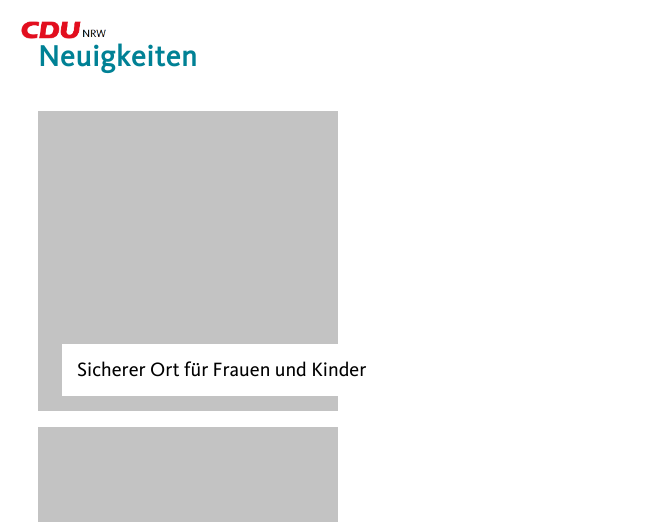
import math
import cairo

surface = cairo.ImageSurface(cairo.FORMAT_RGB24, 664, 522)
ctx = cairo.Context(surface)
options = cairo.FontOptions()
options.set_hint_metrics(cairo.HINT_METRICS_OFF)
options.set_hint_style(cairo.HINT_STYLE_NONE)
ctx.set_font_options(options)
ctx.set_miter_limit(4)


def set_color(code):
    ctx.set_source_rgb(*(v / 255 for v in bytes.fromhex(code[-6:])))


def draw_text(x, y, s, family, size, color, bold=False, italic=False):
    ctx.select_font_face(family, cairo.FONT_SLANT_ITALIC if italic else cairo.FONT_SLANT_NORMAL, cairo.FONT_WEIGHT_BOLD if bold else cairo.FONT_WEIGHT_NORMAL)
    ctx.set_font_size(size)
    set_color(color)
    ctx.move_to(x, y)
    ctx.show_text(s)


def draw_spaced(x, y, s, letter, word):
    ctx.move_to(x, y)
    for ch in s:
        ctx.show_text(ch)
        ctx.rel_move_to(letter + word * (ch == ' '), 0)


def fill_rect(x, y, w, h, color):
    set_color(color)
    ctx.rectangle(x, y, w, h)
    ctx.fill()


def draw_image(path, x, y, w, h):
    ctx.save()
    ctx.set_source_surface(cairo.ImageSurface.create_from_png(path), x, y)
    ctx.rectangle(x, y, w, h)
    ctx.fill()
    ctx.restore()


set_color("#ffffff")
ctx.paint()
draw_image("assets/img1.png", 21, 21, 85, 18)
ctx.select_font_face("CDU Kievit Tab", cairo.FONT_SLANT_NORMAL, cairo.FONT_WEIGHT_BOLD)
ctx.set_font_size(30)
set_color("#008195")
draw_spaced(38, 66, "Neuigkeiten", 0.5, 0)
fill_rect(38, 111, 300, 300, "#c3c3c3")
fill_rect(62, 344, 276, 52, "#ffffff")
draw_text(77, 376, "Sicherer Ort für Frauen und Kinder", "CDU Kievit Tab", 20, "#000000")
fill_rect(38, 427, 300, 95, "#c3c3c3")
surface.write_to_png("output.png")
